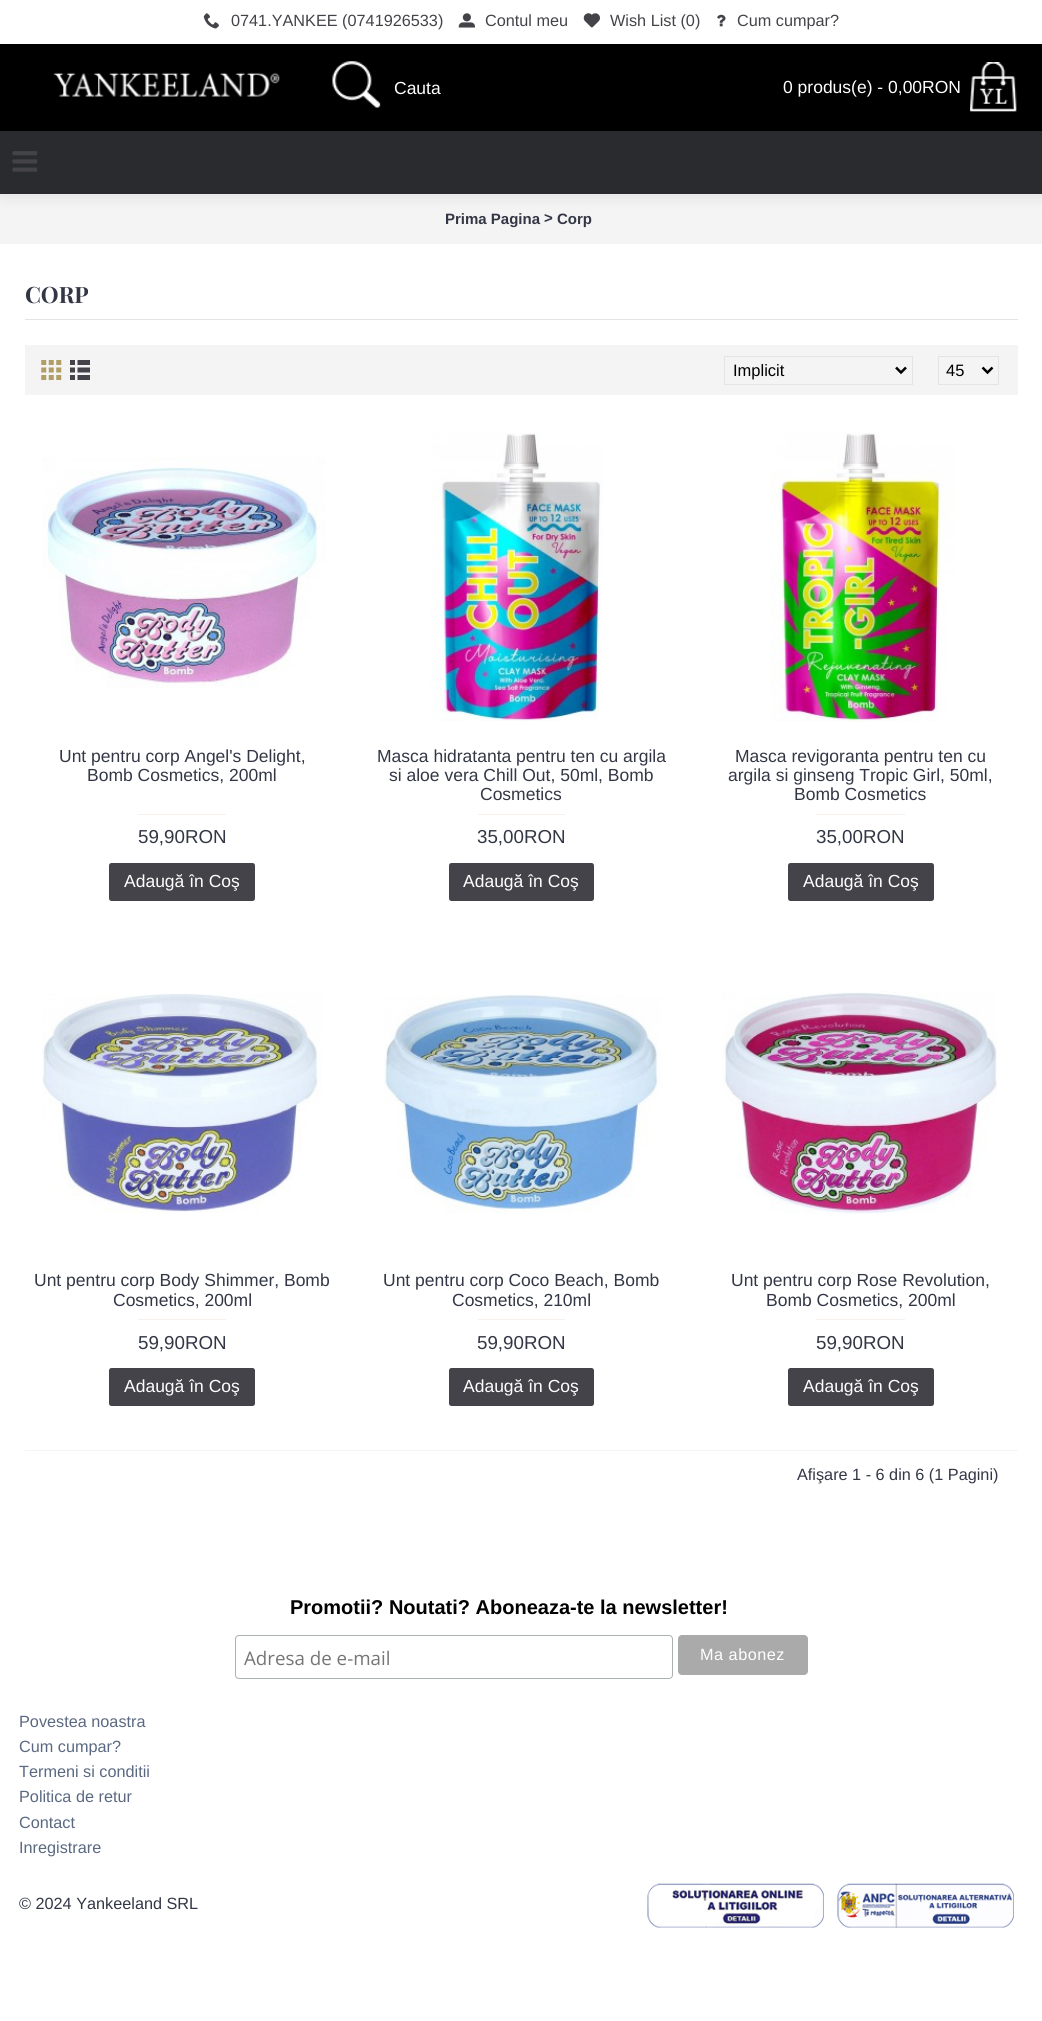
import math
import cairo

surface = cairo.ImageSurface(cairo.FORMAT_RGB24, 1042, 2021)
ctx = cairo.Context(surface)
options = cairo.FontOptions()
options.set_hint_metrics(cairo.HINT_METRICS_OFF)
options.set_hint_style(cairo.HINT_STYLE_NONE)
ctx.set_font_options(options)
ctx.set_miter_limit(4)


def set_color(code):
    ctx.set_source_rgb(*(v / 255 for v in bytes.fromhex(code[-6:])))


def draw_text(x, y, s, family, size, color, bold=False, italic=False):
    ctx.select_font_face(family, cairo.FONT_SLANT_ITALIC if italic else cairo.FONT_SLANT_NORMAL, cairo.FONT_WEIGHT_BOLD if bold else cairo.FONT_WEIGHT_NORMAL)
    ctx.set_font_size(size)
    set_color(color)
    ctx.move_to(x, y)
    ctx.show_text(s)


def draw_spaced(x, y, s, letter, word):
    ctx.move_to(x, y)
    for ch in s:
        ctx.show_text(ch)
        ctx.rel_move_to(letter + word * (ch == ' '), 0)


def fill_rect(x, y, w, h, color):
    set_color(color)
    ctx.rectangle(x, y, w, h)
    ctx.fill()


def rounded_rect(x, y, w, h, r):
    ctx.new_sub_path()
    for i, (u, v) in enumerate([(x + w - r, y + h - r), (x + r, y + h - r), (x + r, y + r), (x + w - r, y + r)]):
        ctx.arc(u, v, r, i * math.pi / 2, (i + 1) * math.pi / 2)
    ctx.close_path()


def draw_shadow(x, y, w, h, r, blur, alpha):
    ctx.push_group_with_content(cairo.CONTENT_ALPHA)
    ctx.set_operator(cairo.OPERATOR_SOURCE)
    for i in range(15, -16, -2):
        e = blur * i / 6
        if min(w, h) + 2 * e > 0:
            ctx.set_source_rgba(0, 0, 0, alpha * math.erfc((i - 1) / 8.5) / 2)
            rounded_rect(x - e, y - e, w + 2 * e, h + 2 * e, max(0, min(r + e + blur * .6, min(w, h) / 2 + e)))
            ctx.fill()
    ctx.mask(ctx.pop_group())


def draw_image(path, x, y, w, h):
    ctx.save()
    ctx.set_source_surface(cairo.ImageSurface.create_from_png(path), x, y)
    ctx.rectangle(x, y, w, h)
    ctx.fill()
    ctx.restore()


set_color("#ffffff")
ctx.paint()
fill_rect(0, 194, 1042, 50, "#f4f4f4")
set_color("#000000")
draw_shadow(0, 1, 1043, 194, 0, 7.5, 0.1)
fill_rect(0, 44, 1042, 87, "#000000")
fill_rect(0, 0, 1042, 44, "#ffffff")
draw_image("assets/img1.png", 203, 13, 16, 16)
draw_text(231, 26, "0741.YANKEE (0741926533)", "Liberation Sans", 16.25, "#444349")
draw_image("assets/img2.png", 458, 13, 17, 15)
draw_text(485, 26, "Contul meu", "Liberation Sans", 16.25, "#444349")
draw_image("assets/img3.png", 583, 13, 17, 15)
draw_text(610, 26, "Wish List (0)", "Liberation Sans", 16.25, "#444349")
draw_image("assets/img4.png", 717, 14, 9, 13)
draw_text(737, 26, "Cum cumpar?", "Liberation Sans", 16.25, "#444349")
draw_image("assets/img5.png", 53, 72, 227, 25)
draw_image("assets/img6.png", 332, 61, 49, 47)
draw_text(394, 94, "Cauta", "Liberation Sans", 17.5, "#ffffff")
draw_text(783, 93, "0 produs(e) - 0,00RON", "Liberation Sans", 17.5, "#ffffff")
draw_image("assets/img7.png", 970, 62, 47, 50)
fill_rect(0, 131, 1042, 63, "#2a2b2e")
draw_image("assets/img8.png", 12, 151, 26, 21)
draw_text(445, 224, "Prima Pagina", "Liberation Sans", 15, "#333745", bold=True)
draw_text(544, 223, ">", "Liberation Sans", 15, "#333745", bold=True)
draw_text(557, 224, "Corp", "Liberation Sans", 15, "#333745", bold=True)
fill_rect(25, 319, 993, 1, "#e4e4e4")
draw_text(25, 303, "CORP", "Playfair Display", 22.5, "#333745", bold=True)
fill_rect(25, 345, 993, 50, "#f4f4f4")
draw_image("assets/img9.png", 41, 360, 21, 20)
draw_image("assets/img10.png", 70, 360, 20, 20)
ctx.rectangle(724.5, 356.5, 188, 28)
set_color("#e4e4e4")
ctx.set_line_width(1)
ctx.stroke()
ctx.new_path()
ctx.move_to(896, 367.5)
ctx.line_to(901, 372.5)
ctx.line_to(906, 367.5)
set_color("#000000")
ctx.set_line_width(2.5)
ctx.stroke()
draw_text(733, 376, "Implicit", "Liberation Sans", 16.5, "#000000")
ctx.rectangle(938.5, 356.5, 60, 28)
set_color("#e4e4e4")
ctx.set_line_width(1)
ctx.stroke()
ctx.new_path()
ctx.move_to(982.5, 367.5)
ctx.line_to(987.5, 372.5)
ctx.line_to(992.5, 367.5)
set_color("#000000")
ctx.set_line_width(2.5)
ctx.stroke()
draw_text(946, 376, "45", "Liberation Sans", 16.5, "#000000")
draw_image("assets/img11.png", 42, 457, 284, 231)
draw_text(59, 762, "Unt pentru corp Angel's Delight,", "Liberation Sans", 17.5, "#333745")
draw_text(87, 781, "Bomb Cosmetics, 200ml", "Liberation Sans", 17.5, "#333745")
fill_rect(138, 814, 88, 1, "#f6f1ec")
draw_text(138, 843, "59,90RON", "Liberation Sans", 18.75, "#333745")
set_color("#444349")
rounded_rect(109, 863, 146, 38, 2.5)
ctx.fill()
draw_text(124, 887, "Adaugă în Coş", "Liberation Sans", 17.5, "#ffffff")
draw_image("assets/img12.png", 431, 433, 172, 288)
draw_text(377, 762, "Masca hidratanta pentru ten cu argila", "Liberation Sans", 17.5, "#333745")
draw_text(389, 781, "si aloe vera Chill Out, 50ml, Bomb", "Liberation Sans", 17.5, "#333745")
draw_text(480, 800, "Cosmetics", "Liberation Sans", 17.5, "#333745")
fill_rect(478, 814, 87, 1, "#f6f1ec")
draw_text(477, 843, "35,00RON", "Liberation Sans", 18.75, "#333745")
set_color("#444349")
rounded_rect(449, 863, 145, 38, 2.5)
ctx.fill()
draw_text(463, 887, "Adaugă în Coş", "Liberation Sans", 17.5, "#ffffff")
draw_image("assets/img13.png", 770, 433, 185, 289)
draw_text(735, 762, "Masca revigoranta pentru ten cu", "Liberation Sans", 17.5, "#333745")
draw_text(728, 781, "argila si ginseng Tropic Girl, 50ml,", "Liberation Sans", 17.5, "#333745")
draw_text(794, 800, "Bomb Cosmetics", "Liberation Sans", 17.5, "#333745")
fill_rect(816, 814, 89, 1, "#f6f1ec")
draw_text(816, 843, "35,00RON", "Liberation Sans", 18.75, "#333745")
set_color("#444349")
rounded_rect(788, 863, 146, 38, 2.5)
ctx.fill()
draw_text(803, 887, "Adaugă în Coş", "Liberation Sans", 17.5, "#ffffff")
draw_image("assets/img14.png", 42, 993, 280, 221)
draw_text(34, 1286, "Unt pentru corp Body Shimmer, Bomb", "Liberation Sans", 17.5, "#333745")
draw_text(113, 1306, "Cosmetics, 200ml", "Liberation Sans", 17.5, "#333745")
fill_rect(138, 1319, 88, 1, "#f6f1ec")
draw_text(138, 1349, "59,90RON", "Liberation Sans", 18.75, "#333745")
set_color("#444349")
rounded_rect(109, 1368, 146, 38, 2.5)
ctx.fill()
draw_text(124, 1392, "Adaugă în Coş", "Liberation Sans", 17.5, "#ffffff")
draw_image("assets/img15.png", 384, 995, 278, 219)
draw_text(383, 1286, "Unt pentru corp Coco Beach, Bomb", "Liberation Sans", 17.5, "#333745")
draw_text(452, 1306, "Cosmetics, 210ml", "Liberation Sans", 17.5, "#333745")
fill_rect(478, 1319, 87, 1, "#f6f1ec")
draw_text(477, 1349, "59,90RON", "Liberation Sans", 18.75, "#333745")
set_color("#444349")
rounded_rect(449, 1368, 145, 38, 2.5)
ctx.fill()
draw_text(463, 1392, "Adaugă în Coş", "Liberation Sans", 17.5, "#ffffff")
draw_image("assets/img16.png", 722, 991, 275, 223)
draw_text(731, 1286, "Unt pentru corp Rose Revolution,", "Liberation Sans", 17.5, "#333745")
draw_text(766, 1306, "Bomb Cosmetics, 200ml", "Liberation Sans", 17.5, "#333745")
fill_rect(816, 1319, 89, 1, "#f6f1ec")
draw_text(816, 1349, "59,90RON", "Liberation Sans", 18.75, "#333745")
set_color("#444349")
rounded_rect(788, 1368, 146, 38, 2.5)
ctx.fill()
draw_text(803, 1392, "Adaugă în Coş", "Liberation Sans", 17.5, "#ffffff")
fill_rect(25, 1450, 993, 1, "#f4f4f4")
draw_text(797, 1480, "Afişare 1 - 6 din 6 (1 Pagini)", "Liberation Sans", 16.25, "#333745")
draw_text(290, 1614, "Promotii? Noutati? Aboneaza-te la newsletter!", "Liberation Sans", 20, "#000000", bold=True)
rounded_rect(235.5, 1635.5, 437, 43, 3.5)
set_color("#abb0b2")
ctx.set_line_width(1)
ctx.stroke()
draw_text(244, 1665, "Adresa de e-mail", "Open Sans", 18.75, "#757575")
set_color("#aaaaaa")
rounded_rect(678, 1635, 130, 40, 4)
ctx.fill()
ctx.select_font_face("Liberation Sans")
ctx.set_font_size(16.25)
set_color("#ffffff")
draw_spaced(700, 1660, "Ma abonez", 0.5, 0)
draw_text(19, 1727, "Povestea noastra", "Liberation Sans", 16.25, "#5a6981")
draw_text(19, 1752, "Cum cumpar?", "Liberation Sans", 16.25, "#5a6981")
draw_text(19, 1777, "Termeni si conditii", "Liberation Sans", 16.25, "#5a6981")
draw_text(19, 1802, "Politica de retur", "Liberation Sans", 16.25, "#5a6981")
draw_text(19, 1828, "Contact", "Liberation Sans", 16.25, "#5a6981")
draw_text(19, 1853, "Inregistrare", "Liberation Sans", 16.25, "#5a6981")
draw_text(19, 1909, "© 2024 Yankeeland SRL", "Liberation Sans", 16.25, "#333745")
draw_image("assets/img17.png", 647, 1883, 177, 45)
draw_image("assets/img18.png", 837, 1883, 177, 45)
surface.write_to_png("output.png")
